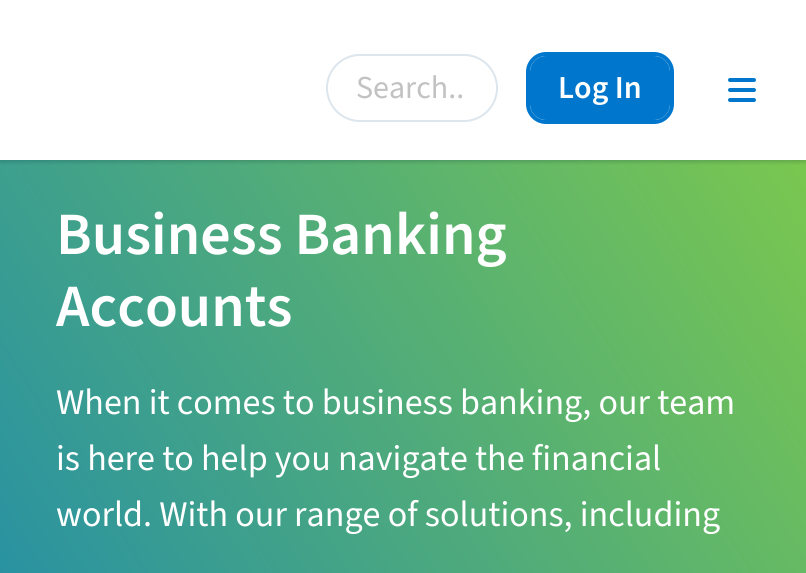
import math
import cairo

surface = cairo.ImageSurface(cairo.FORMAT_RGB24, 806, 573)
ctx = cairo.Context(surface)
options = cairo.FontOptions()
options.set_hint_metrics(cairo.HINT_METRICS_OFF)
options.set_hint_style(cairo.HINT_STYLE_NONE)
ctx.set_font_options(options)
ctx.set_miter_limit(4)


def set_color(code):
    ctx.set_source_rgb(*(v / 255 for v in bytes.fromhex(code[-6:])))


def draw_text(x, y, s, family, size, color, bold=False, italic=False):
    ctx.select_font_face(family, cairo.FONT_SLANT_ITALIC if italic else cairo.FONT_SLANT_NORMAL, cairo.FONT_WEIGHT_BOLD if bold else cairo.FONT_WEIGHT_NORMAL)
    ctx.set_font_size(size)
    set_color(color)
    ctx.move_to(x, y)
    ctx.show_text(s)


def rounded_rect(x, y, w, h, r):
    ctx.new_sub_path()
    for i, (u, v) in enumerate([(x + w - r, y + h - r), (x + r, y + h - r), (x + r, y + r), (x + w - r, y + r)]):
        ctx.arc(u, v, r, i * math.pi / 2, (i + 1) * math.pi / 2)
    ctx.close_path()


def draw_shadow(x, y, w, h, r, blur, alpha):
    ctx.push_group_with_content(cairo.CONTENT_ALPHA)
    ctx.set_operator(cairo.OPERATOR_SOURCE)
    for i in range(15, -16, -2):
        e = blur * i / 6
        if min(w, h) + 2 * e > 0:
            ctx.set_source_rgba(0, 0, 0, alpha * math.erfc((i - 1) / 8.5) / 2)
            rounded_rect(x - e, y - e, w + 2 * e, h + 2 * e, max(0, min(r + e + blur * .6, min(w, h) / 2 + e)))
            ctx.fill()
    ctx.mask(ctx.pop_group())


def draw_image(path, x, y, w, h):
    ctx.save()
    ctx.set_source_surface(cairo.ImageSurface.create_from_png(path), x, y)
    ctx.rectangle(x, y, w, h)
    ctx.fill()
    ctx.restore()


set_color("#ffffff")
ctx.paint()
gradient = cairo.LinearGradient(-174, 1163, 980, 437)
gradient.add_color_stop_rgba(0, 0, 0.467, 0.8, 1)
gradient.add_color_stop_rgba(1, 0.478, 0.78, 0.31, 1)
ctx.set_source(gradient)
ctx.rectangle(0, 160, 806, 413)
ctx.fill()
ctx.save()
ctx.rectangle(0, 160, 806, 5)
ctx.clip()
set_color("#001e33")
draw_shadow(0, 2, 806, 160, 0, 2, 0.2)
ctx.restore()
rounded_rect(327, 55, 170, 66, 33)
set_color("#dde5ed")
ctx.stroke()
draw_text(356, 98, "Search..", "Source Sans 3", 32, "#c2c2c2")
rounded_rect(528, 54, 144, 68, 18)
set_color("#0077cc")
ctx.set_line_width(4)
ctx.stroke()
rounded_rect(530, 56, 140, 64, 16)
ctx.fill()
draw_text(558, 98, "Log In", "Source Sans 3 SemiBold", 32, "#ffffff")
draw_image("assets/img1.png", 728, 78, 28, 24)
draw_text(56, 254, "Business Banking", "Source Sans 3 SemiBold", 60, "#ffffff")
draw_text(56, 326, "Accounts", "Source Sans 3 SemiBold", 60, "#ffffff")
draw_text(56, 414, "When it comes to business banking, our team", "Source Sans 3", 36, "#ffffff")
draw_text(56, 470, "is here to help you navigate the financial", "Source Sans 3", 36, "#ffffff")
draw_text(56, 526, "world. With our range of solutions, including", "Source Sans 3", 36, "#ffffff")
surface.write_to_png("output.png")
